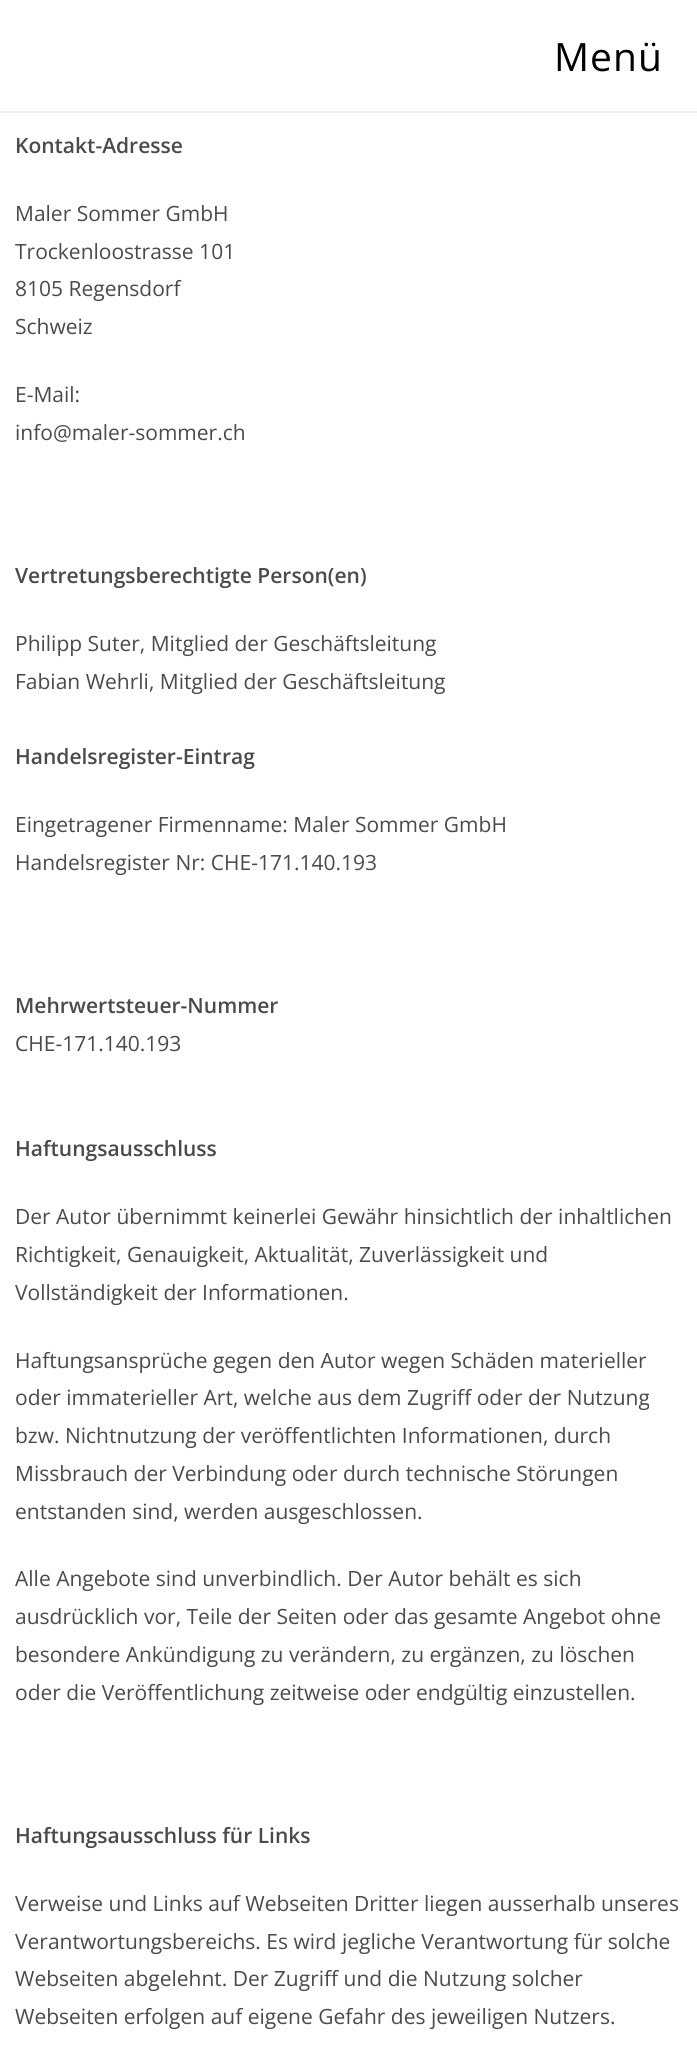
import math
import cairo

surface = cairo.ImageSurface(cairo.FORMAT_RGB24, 697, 2052)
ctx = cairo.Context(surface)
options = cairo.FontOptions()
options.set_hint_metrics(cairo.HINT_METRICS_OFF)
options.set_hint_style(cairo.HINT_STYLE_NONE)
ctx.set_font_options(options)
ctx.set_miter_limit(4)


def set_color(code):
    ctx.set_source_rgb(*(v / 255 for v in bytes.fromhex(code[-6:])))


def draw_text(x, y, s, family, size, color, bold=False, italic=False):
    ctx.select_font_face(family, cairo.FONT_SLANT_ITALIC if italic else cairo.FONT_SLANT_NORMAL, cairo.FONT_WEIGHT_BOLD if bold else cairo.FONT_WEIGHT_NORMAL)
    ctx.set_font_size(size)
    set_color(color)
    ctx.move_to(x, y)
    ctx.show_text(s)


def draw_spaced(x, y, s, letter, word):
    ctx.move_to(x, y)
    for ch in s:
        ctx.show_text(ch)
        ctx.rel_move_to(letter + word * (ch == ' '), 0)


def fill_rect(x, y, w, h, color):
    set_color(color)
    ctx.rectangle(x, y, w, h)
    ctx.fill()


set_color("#ffffff")
ctx.paint()
fill_rect(0, 111, 697, 2, "#f1f1f1")
ctx.select_font_face("Open Sans")
ctx.set_font_size(39)
set_color("#000000")
draw_spaced(554, 71, "Menü", 1, 0)
draw_text(15, 153, "Kontakt-Adresse", "Open Sans SemiBold", 21, "#4a4a4a")
draw_text(15, 221, "Maler Sommer GmbH", "Open Sans", 21, "#4a4a4a")
draw_text(15, 259, "Trockenloostrasse 101", "Open Sans", 21, "#4a4a4a")
draw_text(15, 296, "8105 Regensdorf", "Open Sans", 21, "#4a4a4a")
draw_text(15, 334, "Schweiz", "Open Sans", 21, "#4a4a4a")
draw_text(15, 402, "E-Mail:", "Open Sans", 21, "#4a4a4a")
draw_text(15, 440, "info@maler-sommer.ch", "Open Sans", 21, "#4a4a4a")
draw_text(15, 583, "Vertretungsberechtigte Person(en)", "Open Sans SemiBold", 21, "#4a4a4a")
draw_text(15, 651, "Philipp Suter, Mitglied der Geschäftsleitung", "Open Sans", 21, "#4a4a4a")
draw_text(15, 689, "Fabian Wehrli, Mitglied der Geschäftsleitung", "Open Sans", 21, "#4a4a4a")
draw_text(15, 764, "Handelsregister-Eintrag", "Open Sans SemiBold", 21, "#4a4a4a")
draw_text(15, 832, "Eingetragener Firmenname: Maler Sommer GmbH", "Open Sans", 21, "#4a4a4a")
draw_text(15, 870, "Handelsregister Nr: CHE-171.140.193", "Open Sans", 21, "#4a4a4a")
draw_text(15, 1013, "Mehrwertsteuer-Nummer", "Open Sans SemiBold", 21, "#4a4a4a")
draw_text(15, 1051, "CHE-171.140.193", "Open Sans", 21, "#4a4a4a")
draw_text(15, 1156, "Haftungsausschluss", "Open Sans SemiBold", 21, "#4a4a4a")
draw_text(15, 1224, "Der Autor übernimmt keinerlei Gewähr hinsichtlich der inhaltlichen", "Open Sans", 21, "#4a4a4a")
draw_text(15, 1262, "Richtigkeit, Genauigkeit, Aktualität, Zuverlässigkeit und", "Open Sans", 21, "#4a4a4a")
draw_text(15, 1300, "Vollständigkeit der Informationen.", "Open Sans", 21, "#4a4a4a")
draw_text(15, 1368, "Haftungsansprüche gegen den Autor wegen Schäden materieller", "Open Sans", 21, "#4a4a4a")
draw_text(15, 1405, "oder immaterieller Art, welche aus dem Zugriff oder der Nutzung", "Open Sans", 21, "#4a4a4a")
draw_text(15, 1443, "bzw. Nichtnutzung der veröffentlichten Informationen, durch", "Open Sans", 21, "#4a4a4a")
draw_text(15, 1481, "Missbrauch der Verbindung oder durch technische Störungen", "Open Sans", 21, "#4a4a4a")
draw_text(15, 1519, "entstanden sind, werden ausgeschlossen.", "Open Sans", 21, "#4a4a4a")
draw_text(15, 1586, "Alle Angebote sind unverbindlich. Der Autor behält es sich", "Open Sans", 21, "#4a4a4a")
draw_text(15, 1624, "ausdrücklich vor, Teile der Seiten oder das gesamte Angebot ohne", "Open Sans", 21, "#4a4a4a")
draw_text(15, 1662, "besondere Ankündigung zu verändern, zu ergänzen, zu löschen", "Open Sans", 21, "#4a4a4a")
draw_text(15, 1700, "oder die Veröffentlichung zeitweise oder endgültig einzustellen.", "Open Sans", 21, "#4a4a4a")
draw_text(15, 1843, "Haftungsausschluss für Links", "Open Sans SemiBold", 21, "#4a4a4a")
draw_text(15, 1911, "Verweise und Links auf Webseiten Dritter liegen ausserhalb unseres", "Open Sans", 21, "#4a4a4a")
draw_text(15, 1949, "Verantwortungsbereichs. Es wird jegliche Verantwortung für solche", "Open Sans", 21, "#4a4a4a")
draw_text(15, 1986, "Webseiten abgelehnt. Der Zugriff und die Nutzung solcher", "Open Sans", 21, "#4a4a4a")
draw_text(15, 2024, "Webseiten erfolgen auf eigene Gefahr des jeweiligen Nutzers.", "Open Sans", 21, "#4a4a4a")
surface.write_to_png("output.png")
